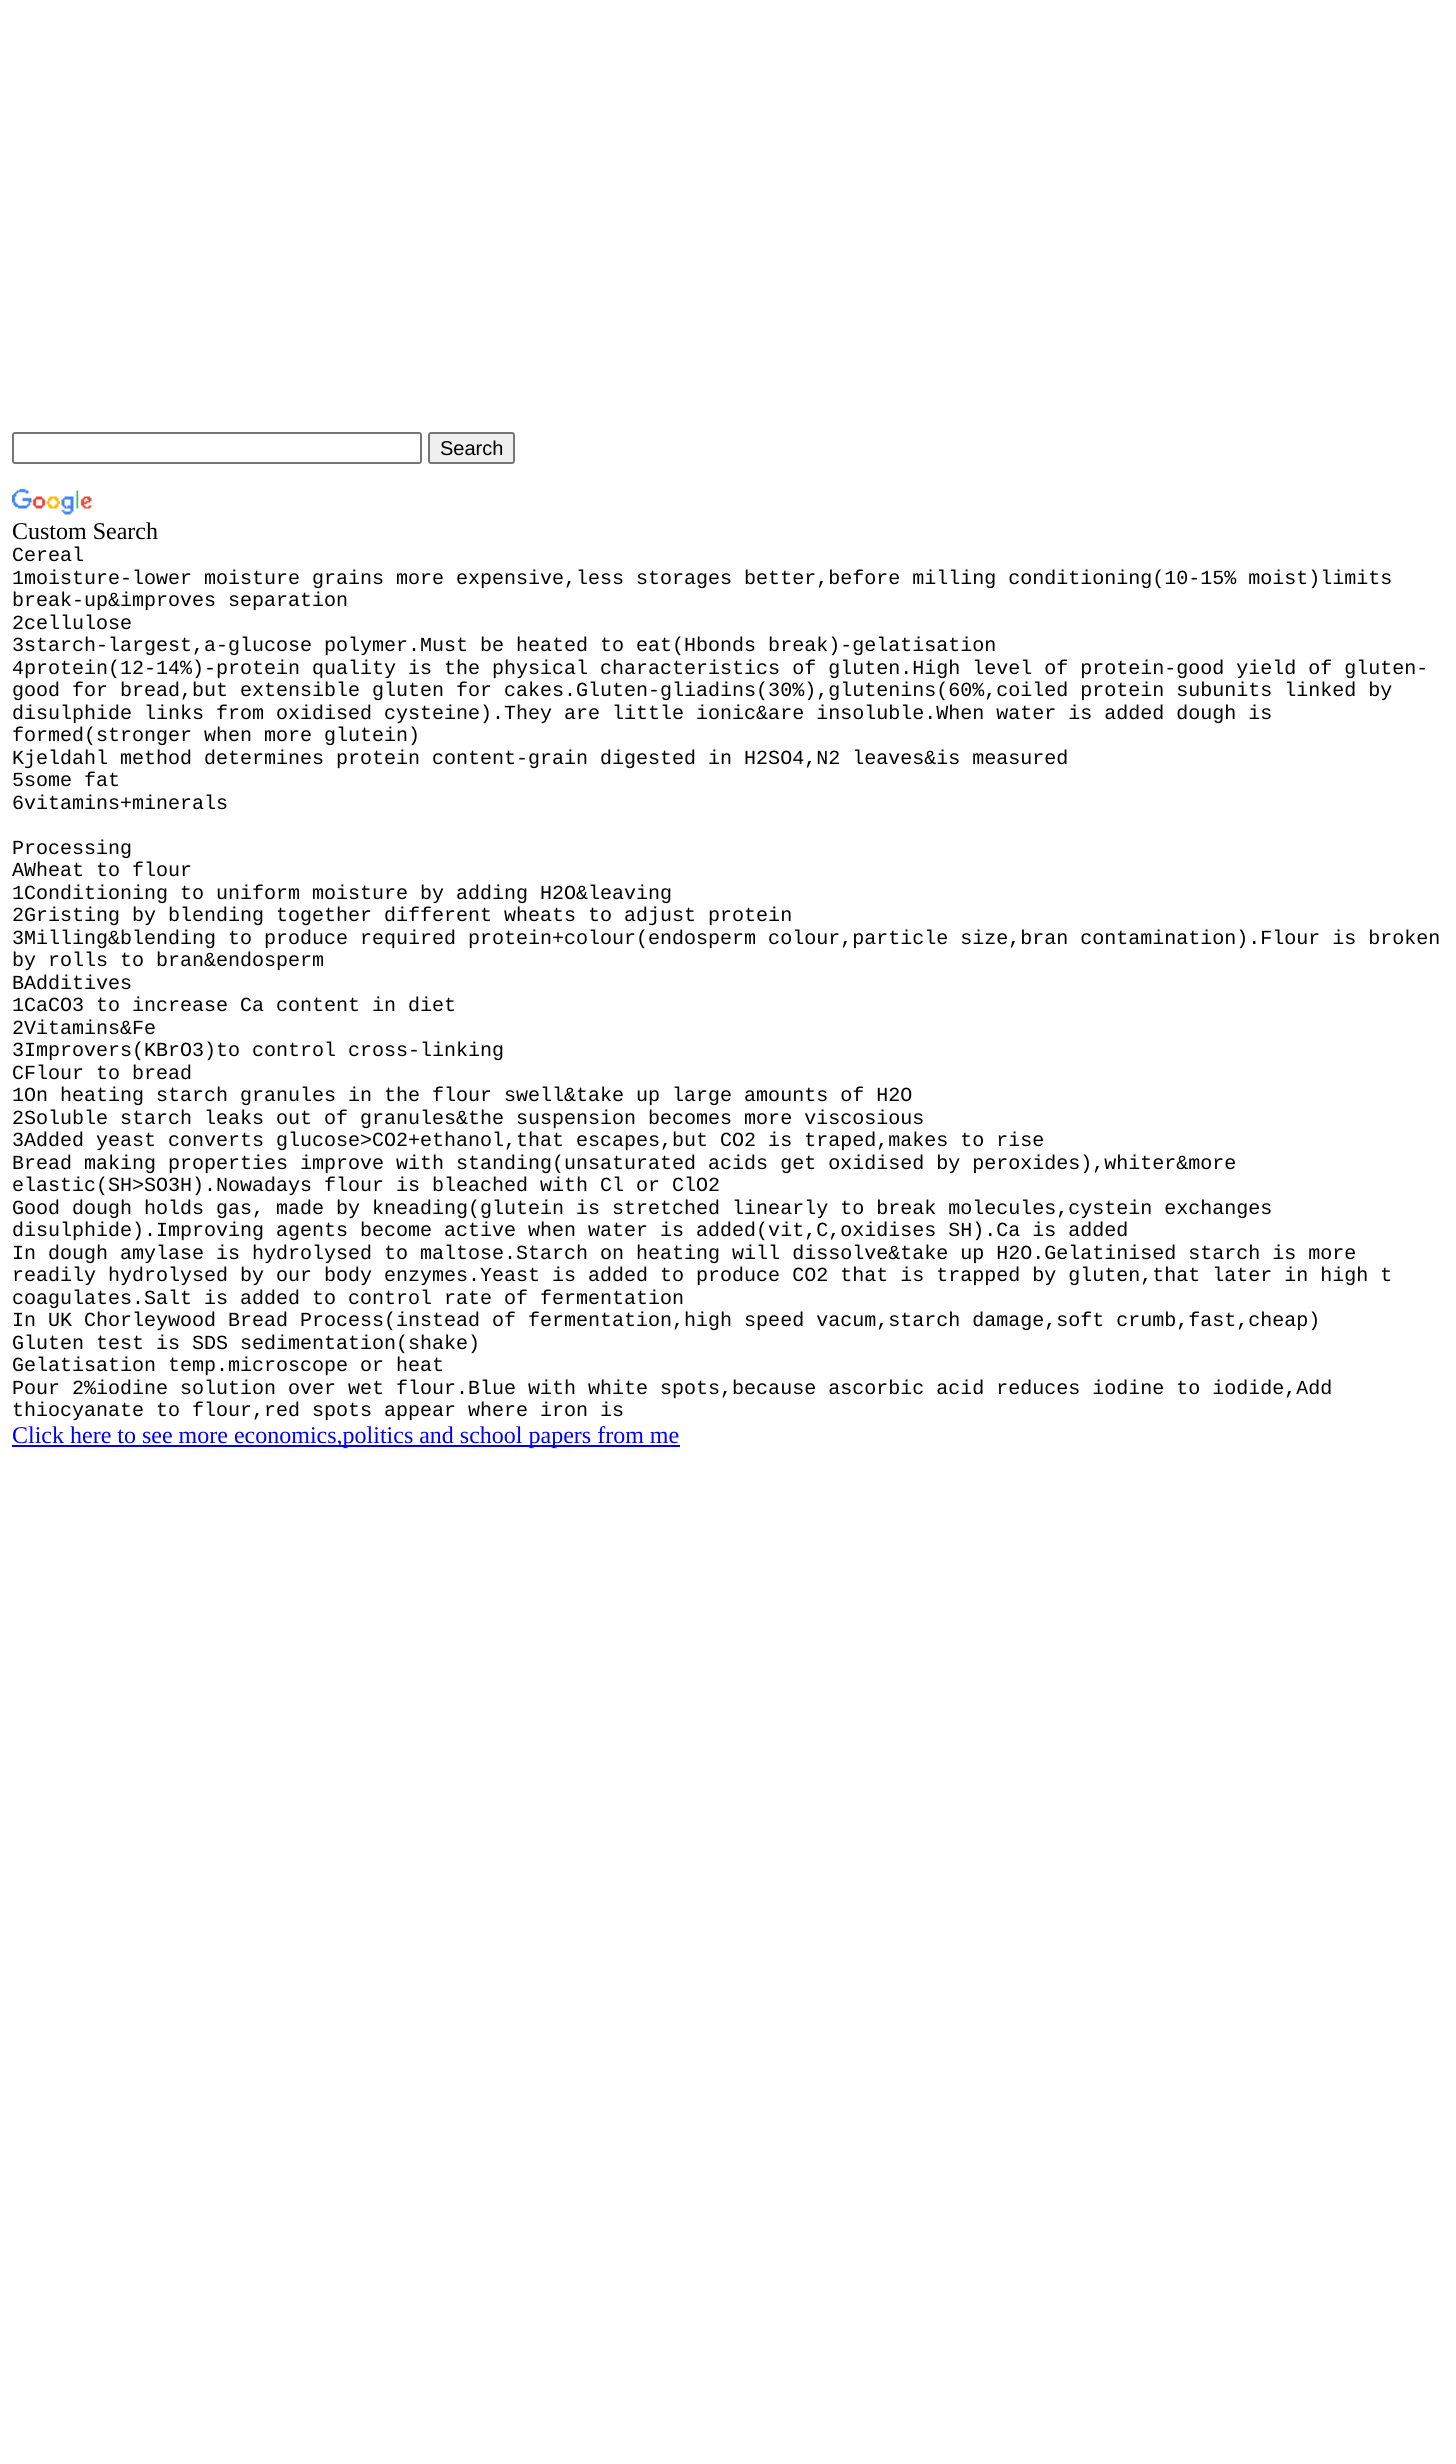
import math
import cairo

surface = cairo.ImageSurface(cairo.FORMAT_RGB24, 1456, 2464)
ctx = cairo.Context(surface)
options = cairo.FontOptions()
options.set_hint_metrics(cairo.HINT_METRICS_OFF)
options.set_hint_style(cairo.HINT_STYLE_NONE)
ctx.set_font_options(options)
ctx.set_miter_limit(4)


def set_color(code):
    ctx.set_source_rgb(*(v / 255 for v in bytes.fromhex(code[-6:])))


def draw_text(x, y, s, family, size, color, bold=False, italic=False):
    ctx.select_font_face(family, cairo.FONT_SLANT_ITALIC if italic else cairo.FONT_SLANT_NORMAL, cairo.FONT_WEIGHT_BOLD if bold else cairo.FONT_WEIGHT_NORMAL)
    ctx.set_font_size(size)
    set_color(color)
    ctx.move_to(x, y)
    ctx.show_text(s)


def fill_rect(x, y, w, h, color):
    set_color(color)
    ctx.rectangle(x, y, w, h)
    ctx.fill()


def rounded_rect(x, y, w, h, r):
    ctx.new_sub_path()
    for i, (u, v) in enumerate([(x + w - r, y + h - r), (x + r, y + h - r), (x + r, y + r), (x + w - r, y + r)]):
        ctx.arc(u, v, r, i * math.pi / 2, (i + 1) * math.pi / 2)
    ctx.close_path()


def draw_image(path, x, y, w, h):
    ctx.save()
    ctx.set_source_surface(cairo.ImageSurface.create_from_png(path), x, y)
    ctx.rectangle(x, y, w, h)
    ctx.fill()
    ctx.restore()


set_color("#ffffff")
ctx.paint()
rounded_rect(13, 433, 408, 30, 2)
set_color("#767676")
ctx.stroke()
set_color("#efefef")
rounded_rect(429, 433, 85, 30, 2)
ctx.fill_preserve()
set_color("#767676")
ctx.stroke()
draw_text(440, 455, "Search", "Liberation Sans", 20, "#000000")
draw_image("assets/img1.png", 12, 488, 80, 27)
draw_text(12, 539, "Custom Search", "Liberation Serif", 24, "#000000")
draw_text(12, 561, "Cereal", "Liberation Mono", 20, "#000000")
draw_text(12, 584, "1moisture-lower moisture grains more expensive,less storages better,before milling conditioning(10-15% moist)limits", "Liberation Mono", 20, "#000000")
draw_text(12, 606, "break-up&improves separation", "Liberation Mono", 20, "#000000")
draw_text(12, 629, "2cellulose", "Liberation Mono", 20, "#000000")
draw_text(12, 651, "3starch-largest,a-glucose polymer.Must be heated to eat(Hbonds break)-gelatisation", "Liberation Mono", 20, "#000000")
draw_text(12, 674, "4protein(12-14%)-protein quality is the physical characteristics of gluten.High level of protein-good yield of gluten-", "Liberation Mono", 20, "#000000")
draw_text(12, 696, "good for bread,but extensible gluten for cakes.Gluten-gliadins(30%),glutenins(60%,coiled protein subunits linked by", "Liberation Mono", 20, "#000000")
draw_text(12, 719, "disulphide links from oxidised cysteine).They are little ionic&are insoluble.When water is added dough is", "Liberation Mono", 20, "#000000")
draw_text(12, 741, "formed(stronger when more glutein)", "Liberation Mono", 20, "#000000")
draw_text(12, 764, "Kjeldahl method determines protein content-grain digested in H2SO4,N2 leaves&is measured", "Liberation Mono", 20, "#000000")
draw_text(12, 786, "5some fat", "Liberation Mono", 20, "#000000")
draw_text(12, 809, "6vitamins+minerals", "Liberation Mono", 20, "#000000")
draw_text(12, 854, "Processing", "Liberation Mono", 20, "#000000")
draw_text(12, 876, "AWheat to flour", "Liberation Mono", 20, "#000000")
draw_text(12, 899, "1Conditioning to uniform moisture by adding H2O&leaving", "Liberation Mono", 20, "#000000")
draw_text(12, 921, "2Gristing by blending together different wheats to adjust protein", "Liberation Mono", 20, "#000000")
draw_text(12, 944, "3Milling&blending to produce required protein+colour(endosperm colour,particle size,bran contamination).Flour is broken", "Liberation Mono", 20, "#000000")
draw_text(12, 966, "by rolls to bran&endosperm", "Liberation Mono", 20, "#000000")
draw_text(12, 989, "BAdditives", "Liberation Mono", 20, "#000000")
draw_text(12, 1011, "1CaCO3 to increase Ca content in diet", "Liberation Mono", 20, "#000000")
draw_text(12, 1034, "2Vitamins&Fe", "Liberation Mono", 20, "#000000")
draw_text(12, 1056, "3Improvers(KBrO3)to control cross-linking", "Liberation Mono", 20, "#000000")
draw_text(12, 1079, "CFlour to bread", "Liberation Mono", 20, "#000000")
draw_text(12, 1101, "1On heating starch granules in the flour swell&take up large amounts of H2O", "Liberation Mono", 20, "#000000")
draw_text(12, 1124, "2Soluble starch leaks out of granules&the suspension becomes more viscosious", "Liberation Mono", 20, "#000000")
draw_text(12, 1146, "3Added yeast converts glucose>CO2+ethanol,that escapes,but CO2 is traped,makes to rise", "Liberation Mono", 20, "#000000")
draw_text(12, 1169, "Bread making properties improve with standing(unsaturated acids get oxidised by peroxides),whiter&more", "Liberation Mono", 20, "#000000")
draw_text(12, 1191, "elastic(SH>SO3H).Nowadays flour is bleached with Cl or ClO2", "Liberation Mono", 20, "#000000")
draw_text(12, 1214, "Good dough holds gas, made by kneading(glutein is stretched linearly to break molecules,cystein exchanges", "Liberation Mono", 20, "#000000")
draw_text(12, 1236, "disulphide).Improving agents become active when water is added(vit,C,oxidises SH).Ca is added", "Liberation Mono", 20, "#000000")
draw_text(12, 1259, "In dough amylase is hydrolysed to maltose.Starch on heating will dissolve&take up H2O.Gelatinised starch is more", "Liberation Mono", 20, "#000000")
draw_text(12, 1281, "readily hydrolysed by our body enzymes.Yeast is added to produce CO2 that is trapped by gluten,that later in high t", "Liberation Mono", 20, "#000000")
draw_text(12, 1304, "coagulates.Salt is added to control rate of fermentation", "Liberation Mono", 20, "#000000")
draw_text(12, 1326, "In UK Chorleywood Bread Process(instead of fermentation,high speed vacum,starch damage,soft crumb,fast,cheap)", "Liberation Mono", 20, "#000000")
draw_text(12, 1349, "Gluten test is SDS sedimentation(shake)", "Liberation Mono", 20, "#000000")
draw_text(12, 1371, "Gelatisation temp.microscope or heat", "Liberation Mono", 20, "#000000")
draw_text(12, 1394, "Pour 2%iodine solution over wet flour.Blue with white spots,because ascorbic acid reduces iodine to iodide,Add", "Liberation Mono", 20, "#000000")
draw_text(12, 1416, "thiocyanate to flour,red spots appear where iron is", "Liberation Mono", 20, "#000000")
fill_rect(12, 1445, 668, 2, "#0000ee")
draw_text(12, 1443, "Click here to see more economics,politics and school papers from me", "Liberation Serif", 24, "#0000ee")
surface.write_to_png("output.png")
